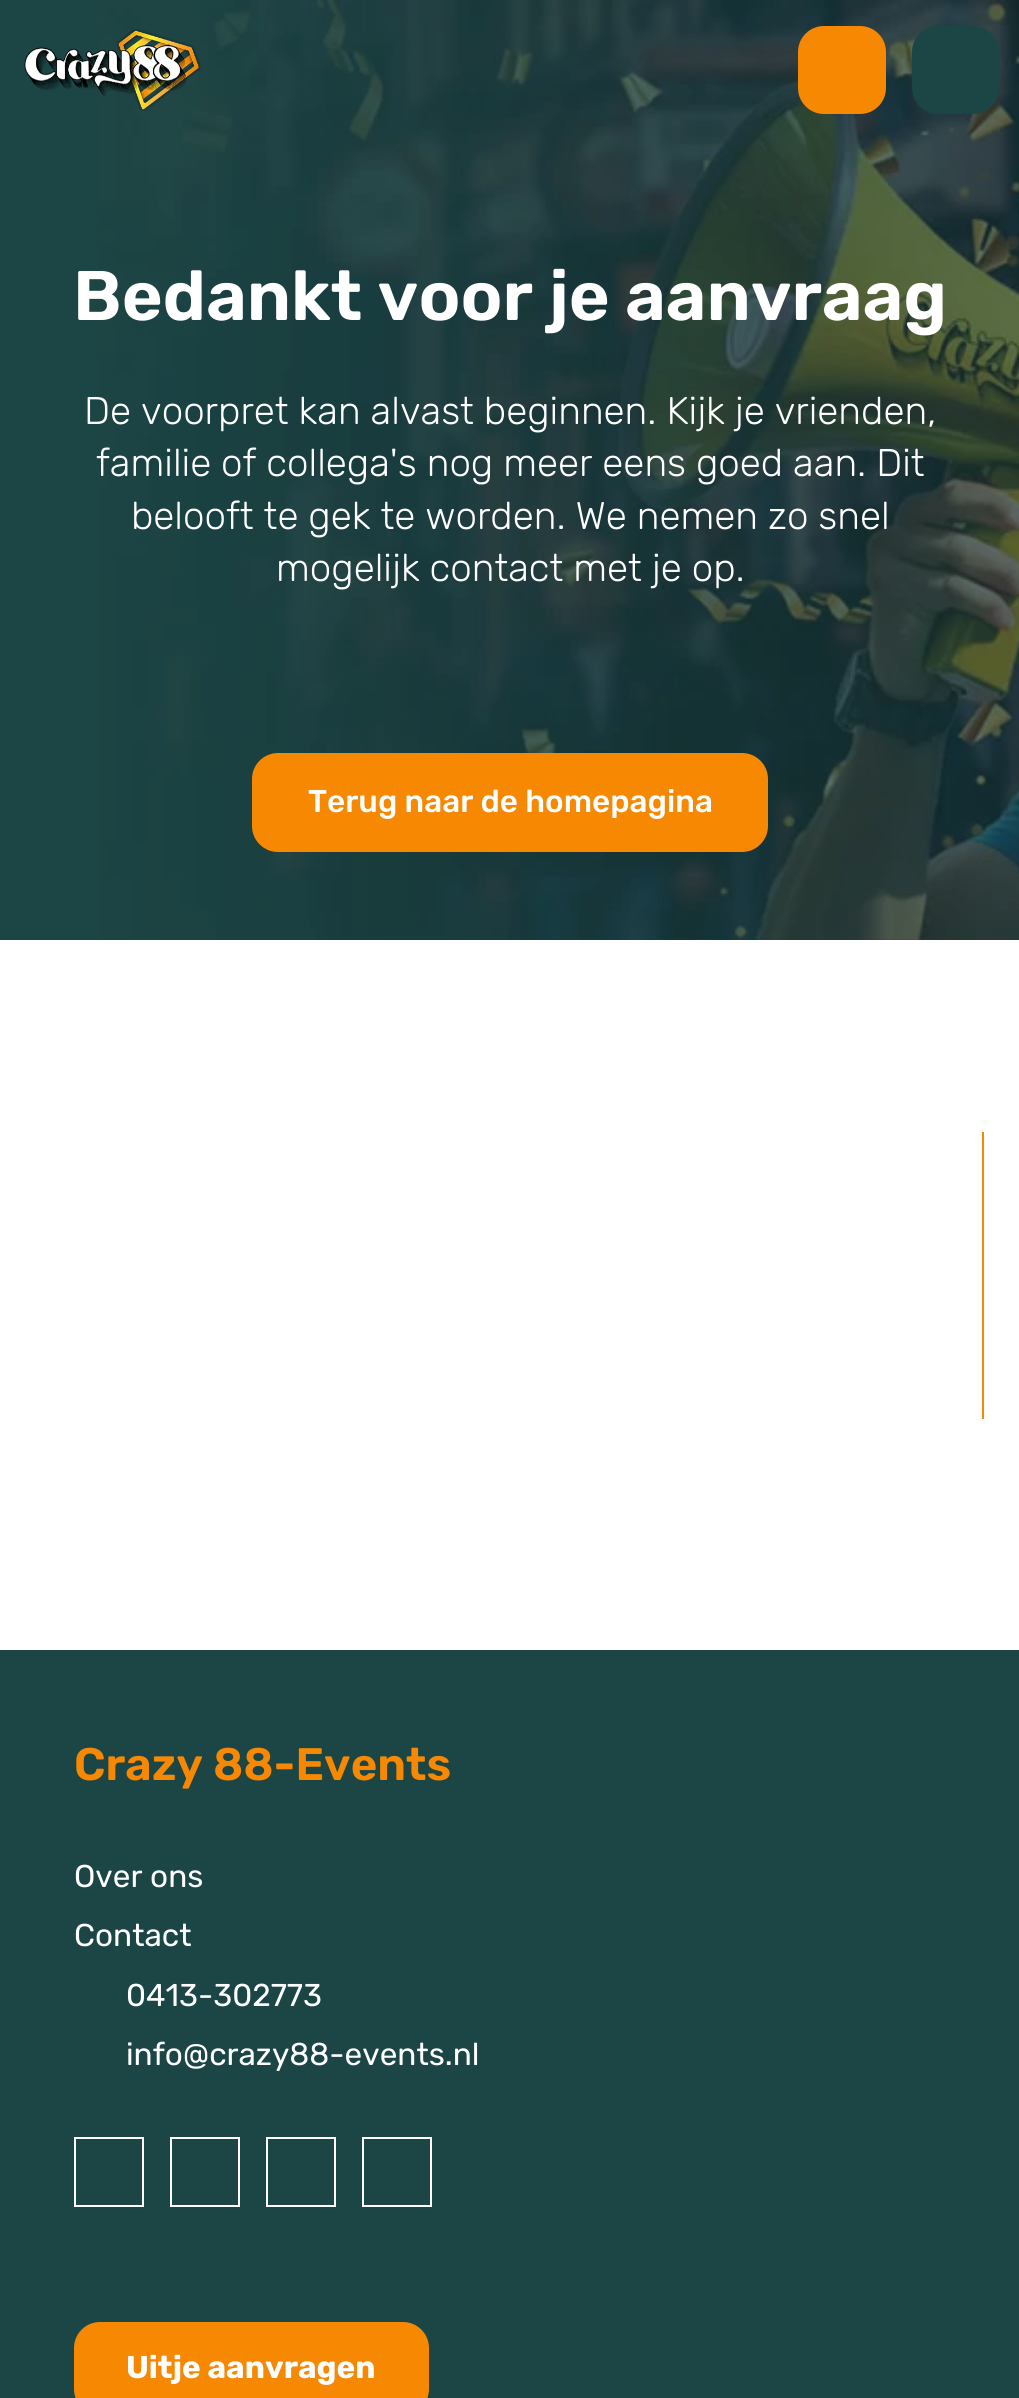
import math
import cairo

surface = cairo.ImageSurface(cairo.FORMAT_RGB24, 1019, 2398)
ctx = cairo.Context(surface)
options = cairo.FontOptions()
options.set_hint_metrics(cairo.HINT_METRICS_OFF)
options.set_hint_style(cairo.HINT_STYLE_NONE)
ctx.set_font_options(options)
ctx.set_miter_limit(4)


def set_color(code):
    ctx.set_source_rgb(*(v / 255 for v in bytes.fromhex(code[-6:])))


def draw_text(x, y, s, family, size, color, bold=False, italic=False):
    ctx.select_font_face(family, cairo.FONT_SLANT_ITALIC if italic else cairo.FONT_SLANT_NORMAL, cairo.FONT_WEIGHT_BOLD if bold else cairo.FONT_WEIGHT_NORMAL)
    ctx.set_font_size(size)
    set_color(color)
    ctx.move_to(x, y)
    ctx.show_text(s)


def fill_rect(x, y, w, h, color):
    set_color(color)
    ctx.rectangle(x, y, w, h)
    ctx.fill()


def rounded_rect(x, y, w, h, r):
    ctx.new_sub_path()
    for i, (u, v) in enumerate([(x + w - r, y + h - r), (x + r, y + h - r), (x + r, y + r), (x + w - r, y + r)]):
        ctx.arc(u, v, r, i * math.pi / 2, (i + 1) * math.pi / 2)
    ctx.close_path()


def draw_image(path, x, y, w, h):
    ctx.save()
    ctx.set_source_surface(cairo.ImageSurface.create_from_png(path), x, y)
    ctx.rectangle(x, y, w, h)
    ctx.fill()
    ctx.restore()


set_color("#ffffff")
ctx.paint()
fill_rect(0, 0, 1019, 940, "#1c4545")
draw_image("assets/img2.png", 98, 0, 921, 940)
draw_image("assets/img1.png", 24, 29, 177, 82)
set_color("#f68802")
rounded_rect(798, 26, 88, 88, 26)
ctx.fill()
set_color("#1c4545")
rounded_rect(912, 26, 87, 88, 26)
ctx.fill()
draw_text(73, 320, "Bedankt voor je aanvraag", "Rubik SemiBold", 70, "#ffffff")
draw_text(84, 424, "De voorpret kan alvast beginnen. Kijk je vrienden,", "Rubik Light", 38.5, "#ffffff")
draw_text(96, 476, "familie of collega's nog meer eens goed aan. Dit", "Rubik Light", 38.5, "#ffffff")
draw_text(131, 529, "belooft te gek te worden. We nemen zo snel", "Rubik Light", 38.5, "#ffffff")
draw_text(276, 581, "mogelijk contact met je op.", "Rubik Light", 38.5, "#ffffff")
set_color("#f68802")
rounded_rect(254, 755, 512, 95, 24)
ctx.fill_preserve()
ctx.set_line_width(4)
ctx.stroke()
draw_text(308, 812, "Terug naar de homepagina", "Rubik Medium", 31.5, "#ffffff")
fill_rect(982, 1132, 2, 287, "#f68802")
fill_rect(0, 1650, 1019, 748, "#1c4545")
draw_text(74, 1780, "Crazy 88-Events", "Rubik SemiBold", 45.5, "#f68802")
draw_text(74, 1887, "Over ons", "Rubik", 31.5, "#ffffff")
draw_text(74, 1946, "Contact", "Rubik", 31.5, "#ffffff")
draw_text(126, 2006, "0413-302773", "Rubik", 31.5, "#ffffff")
draw_text(126, 2065, "info@crazy88-events.nl", "Rubik", 31.5, "#ffffff")
ctx.rectangle(75, 2138, 68, 68)
ctx.set_line_width(2)
ctx.stroke()
ctx.rectangle(171, 2138, 68, 68)
ctx.stroke()
ctx.rectangle(267, 2138, 68, 68)
ctx.stroke()
ctx.rectangle(363, 2138, 68, 68)
ctx.stroke()
set_color("#f68802")
rounded_rect(74, 2322, 355, 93, 26)
ctx.fill()
draw_text(126, 2378, "Uitje aanvragen", "Rubik", 31.5, "#ffffff", bold=True)
surface.write_to_png("output.png")
